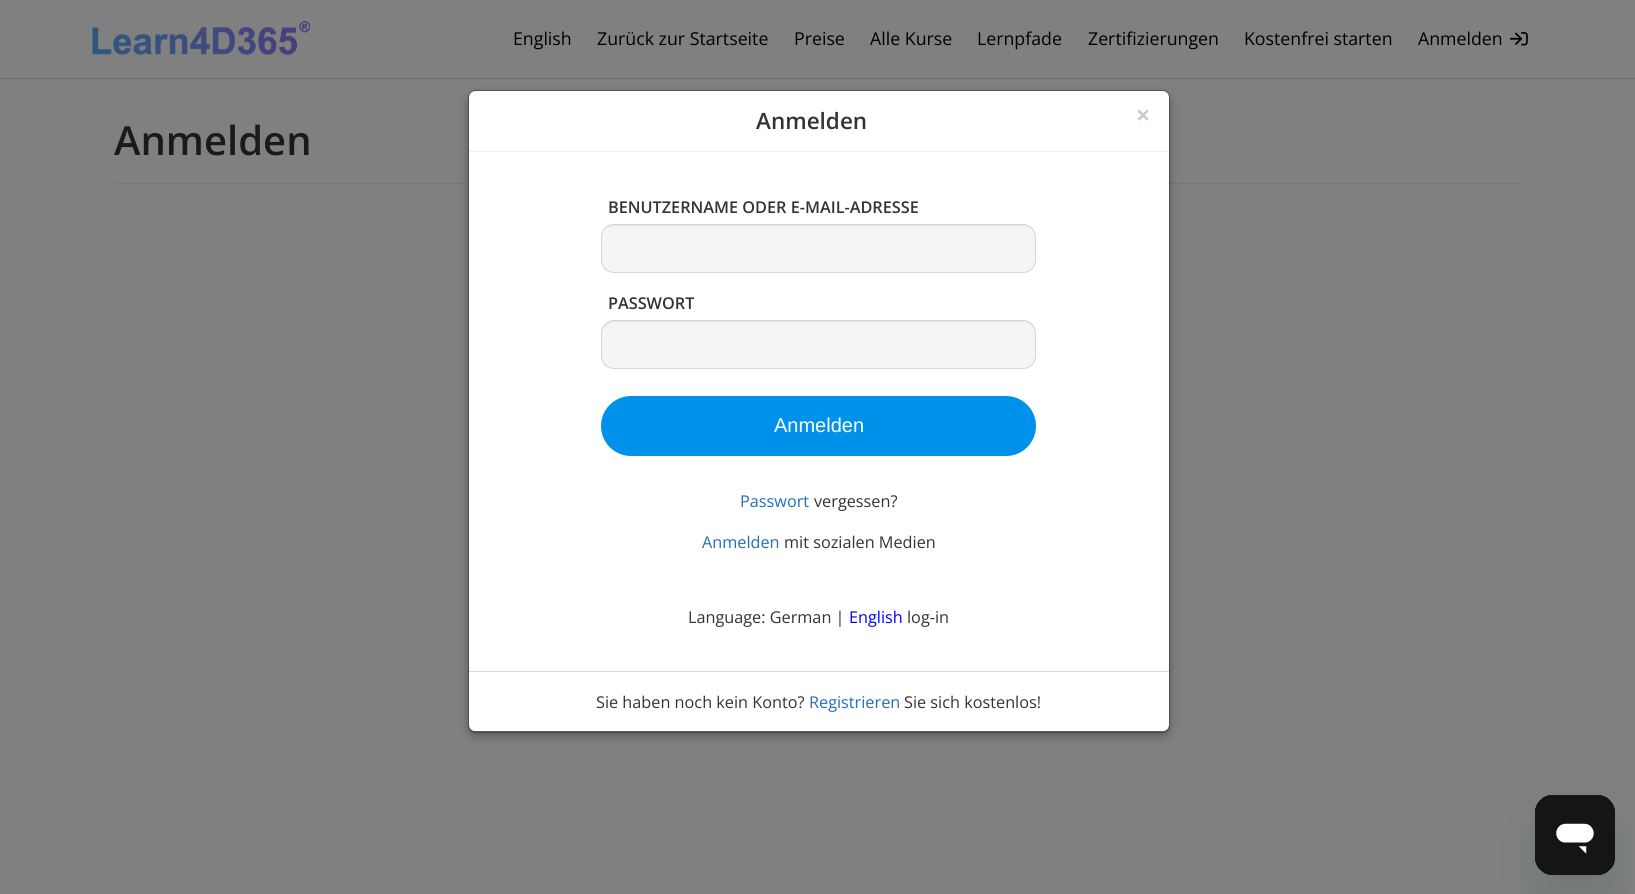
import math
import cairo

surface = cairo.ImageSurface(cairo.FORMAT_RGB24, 1635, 894)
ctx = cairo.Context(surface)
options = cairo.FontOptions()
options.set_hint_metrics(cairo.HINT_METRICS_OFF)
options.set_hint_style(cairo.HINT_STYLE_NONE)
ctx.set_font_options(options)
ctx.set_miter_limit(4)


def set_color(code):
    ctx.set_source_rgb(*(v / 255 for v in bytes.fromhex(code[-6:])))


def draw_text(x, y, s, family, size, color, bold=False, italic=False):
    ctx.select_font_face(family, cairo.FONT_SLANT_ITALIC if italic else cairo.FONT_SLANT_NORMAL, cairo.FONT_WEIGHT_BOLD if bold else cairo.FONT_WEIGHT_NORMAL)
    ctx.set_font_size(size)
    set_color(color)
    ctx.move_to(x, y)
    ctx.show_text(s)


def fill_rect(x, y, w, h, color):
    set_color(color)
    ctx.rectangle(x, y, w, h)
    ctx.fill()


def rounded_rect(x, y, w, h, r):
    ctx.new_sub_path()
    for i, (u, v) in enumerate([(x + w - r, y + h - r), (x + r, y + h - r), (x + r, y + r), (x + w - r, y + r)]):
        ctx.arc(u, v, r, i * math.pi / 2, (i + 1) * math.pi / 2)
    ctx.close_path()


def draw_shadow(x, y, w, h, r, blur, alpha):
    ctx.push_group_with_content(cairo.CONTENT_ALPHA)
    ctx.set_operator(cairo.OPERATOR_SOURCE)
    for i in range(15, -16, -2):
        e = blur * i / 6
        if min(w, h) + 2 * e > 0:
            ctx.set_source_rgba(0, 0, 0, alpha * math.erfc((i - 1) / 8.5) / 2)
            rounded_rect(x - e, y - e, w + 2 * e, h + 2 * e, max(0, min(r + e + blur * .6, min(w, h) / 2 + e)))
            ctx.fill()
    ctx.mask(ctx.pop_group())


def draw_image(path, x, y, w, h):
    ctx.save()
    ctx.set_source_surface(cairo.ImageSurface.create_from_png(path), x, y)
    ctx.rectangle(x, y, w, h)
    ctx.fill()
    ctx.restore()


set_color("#808080")
ctx.paint()
fill_rect(0, 78, 1635, 1, "#686c6e")
draw_image("assets/img1.png", 92, 20, 218, 36)
draw_text(513, 45, "English", "Open Sans", 17.75, "#000000")
draw_text(597, 45, "Zurück zur Startseite", "Open Sans", 17.75, "#000000")
draw_text(794, 45, "Preise", "Open Sans", 17.75, "#000000")
draw_text(870, 45, "Alle Kurse", "Open Sans", 17.75, "#000000")
draw_text(977, 45, "Lernpfade", "Open Sans", 17.75, "#000000")
draw_text(1088, 45, "Zertifizierungen", "Open Sans", 17.75, "#000000")
draw_text(1244, 45, "Kostenfrei starten", "Open Sans", 17.75, "#000000")
draw_text(1418, 45, "Anmelden", "Open Sans", 17.75, "#000000")
draw_image("assets/img2.png", 1510, 32, 18, 14)
draw_text(114, 155, "Anmelden", "Open Sans SemiBold", 40, "#1a1a1a")
fill_rect(114, 183, 1410, 1, "#777777")
set_color("#000000")
draw_shadow(468, 94, 702, 642, 8, 4.5, 0.3)
set_color("#ffffff")
rounded_rect(469, 91, 700, 640, 6)
ctx.fill()
rounded_rect(468.5, 90.5, 701, 642, 7.5)
ctx.set_source_rgba(0, 0, 0, 0.3)
ctx.set_line_width(1)
ctx.stroke()
fill_rect(469, 151, 700, 1, "#eeeeee")
draw_text(756, 129, "Anmelden", "Open Sans SemiBold", 22.5, "#333333")
draw_text(1136, 124, "×", "Open Sans", 25, "#cccccc", bold=True)
draw_text(608, 213, "BENUTZERNAME ODER E-MAIL-ADRESSE", "Open Sans SemiBold", 16.25, "#333333")
set_color("#f5f5f5")
rounded_rect(601, 224, 435, 49, 13)
ctx.fill()
set_color("#e3e3e3")
ctx.new_path()
ctx.move_to(614, 226)
ctx.line_to(1024, 226)
ctx.curve_to(1030, 226, 1035, 231, 1035, 238)
ctx.line_to(1035, 236)
ctx.curve_to(1035, 230, 1030, 225, 1024, 225)
ctx.line_to(614, 225)
ctx.curve_to(610, 225, 606, 228, 604, 231)
ctx.curve_to(606, 228, 610, 226, 614, 226)
ctx.close_path()
ctx.fill()
rounded_rect(601.5, 224.5, 434, 48, 12.5)
set_color("#cfd8dc")
ctx.stroke()
draw_text(608, 309, "PASSWORT", "Open Sans SemiBold", 16.25, "#333333")
set_color("#f5f5f5")
rounded_rect(601, 320, 435, 49, 13)
ctx.fill()
set_color("#e3e3e3")
ctx.new_path()
ctx.move_to(614, 322)
ctx.line_to(1024, 322)
ctx.curve_to(1030, 322, 1035, 328, 1035, 334)
ctx.line_to(1035, 332)
ctx.curve_to(1035, 326, 1030, 321, 1024, 321)
ctx.line_to(614, 321)
ctx.curve_to(609, 321, 605, 324, 604, 329)
ctx.curve_to(606, 325, 610, 322, 614, 322)
ctx.close_path()
ctx.fill()
rounded_rect(601.5, 320.5, 434, 48, 12.5)
set_color("#cfd8dc")
ctx.stroke()
set_color("#0091ea")
rounded_rect(601, 396, 435, 60, 30)
ctx.fill()
draw_text(774, 432, "Anmelden", "Liberation Sans", 20, "#ffffff")
draw_text(740, 507, "Passwort", "Open Sans", 16.25, "#216eb9")
draw_text(814, 507, "vergessen?", "Open Sans", 16.25, "#333333")
draw_text(702, 548, "Anmelden", "Open Sans", 16.25, "#216eb9")
draw_text(784, 548, "mit sozialen Medien", "Open Sans", 16.25, "#333333")
draw_text(688, 623, "Language: German |", "Open Sans", 16.25, "#333333")
draw_text(849, 623, "English", "Open Sans", 16.25, "#0000ff")
draw_text(907, 623, "log-in", "Open Sans", 16.25, "#333333")
fill_rect(469, 671, 700, 1, "#dadada")
draw_text(596, 708, "Sie haben noch kein Konto?", "Open Sans", 16.25, "#333333")
draw_text(809, 708, "Registrieren", "Open Sans", 16.25, "#216eb9")
draw_text(904, 708, "Sie sich kostenlos!", "Open Sans", 16.25, "#333333")
set_color("#17494d")
draw_shadow(1535, 820, 80, 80, 18, 19, 0.15)
draw_image("assets/img3.png", 1535, 795, 80, 80)
surface.write_to_png("output.png")
